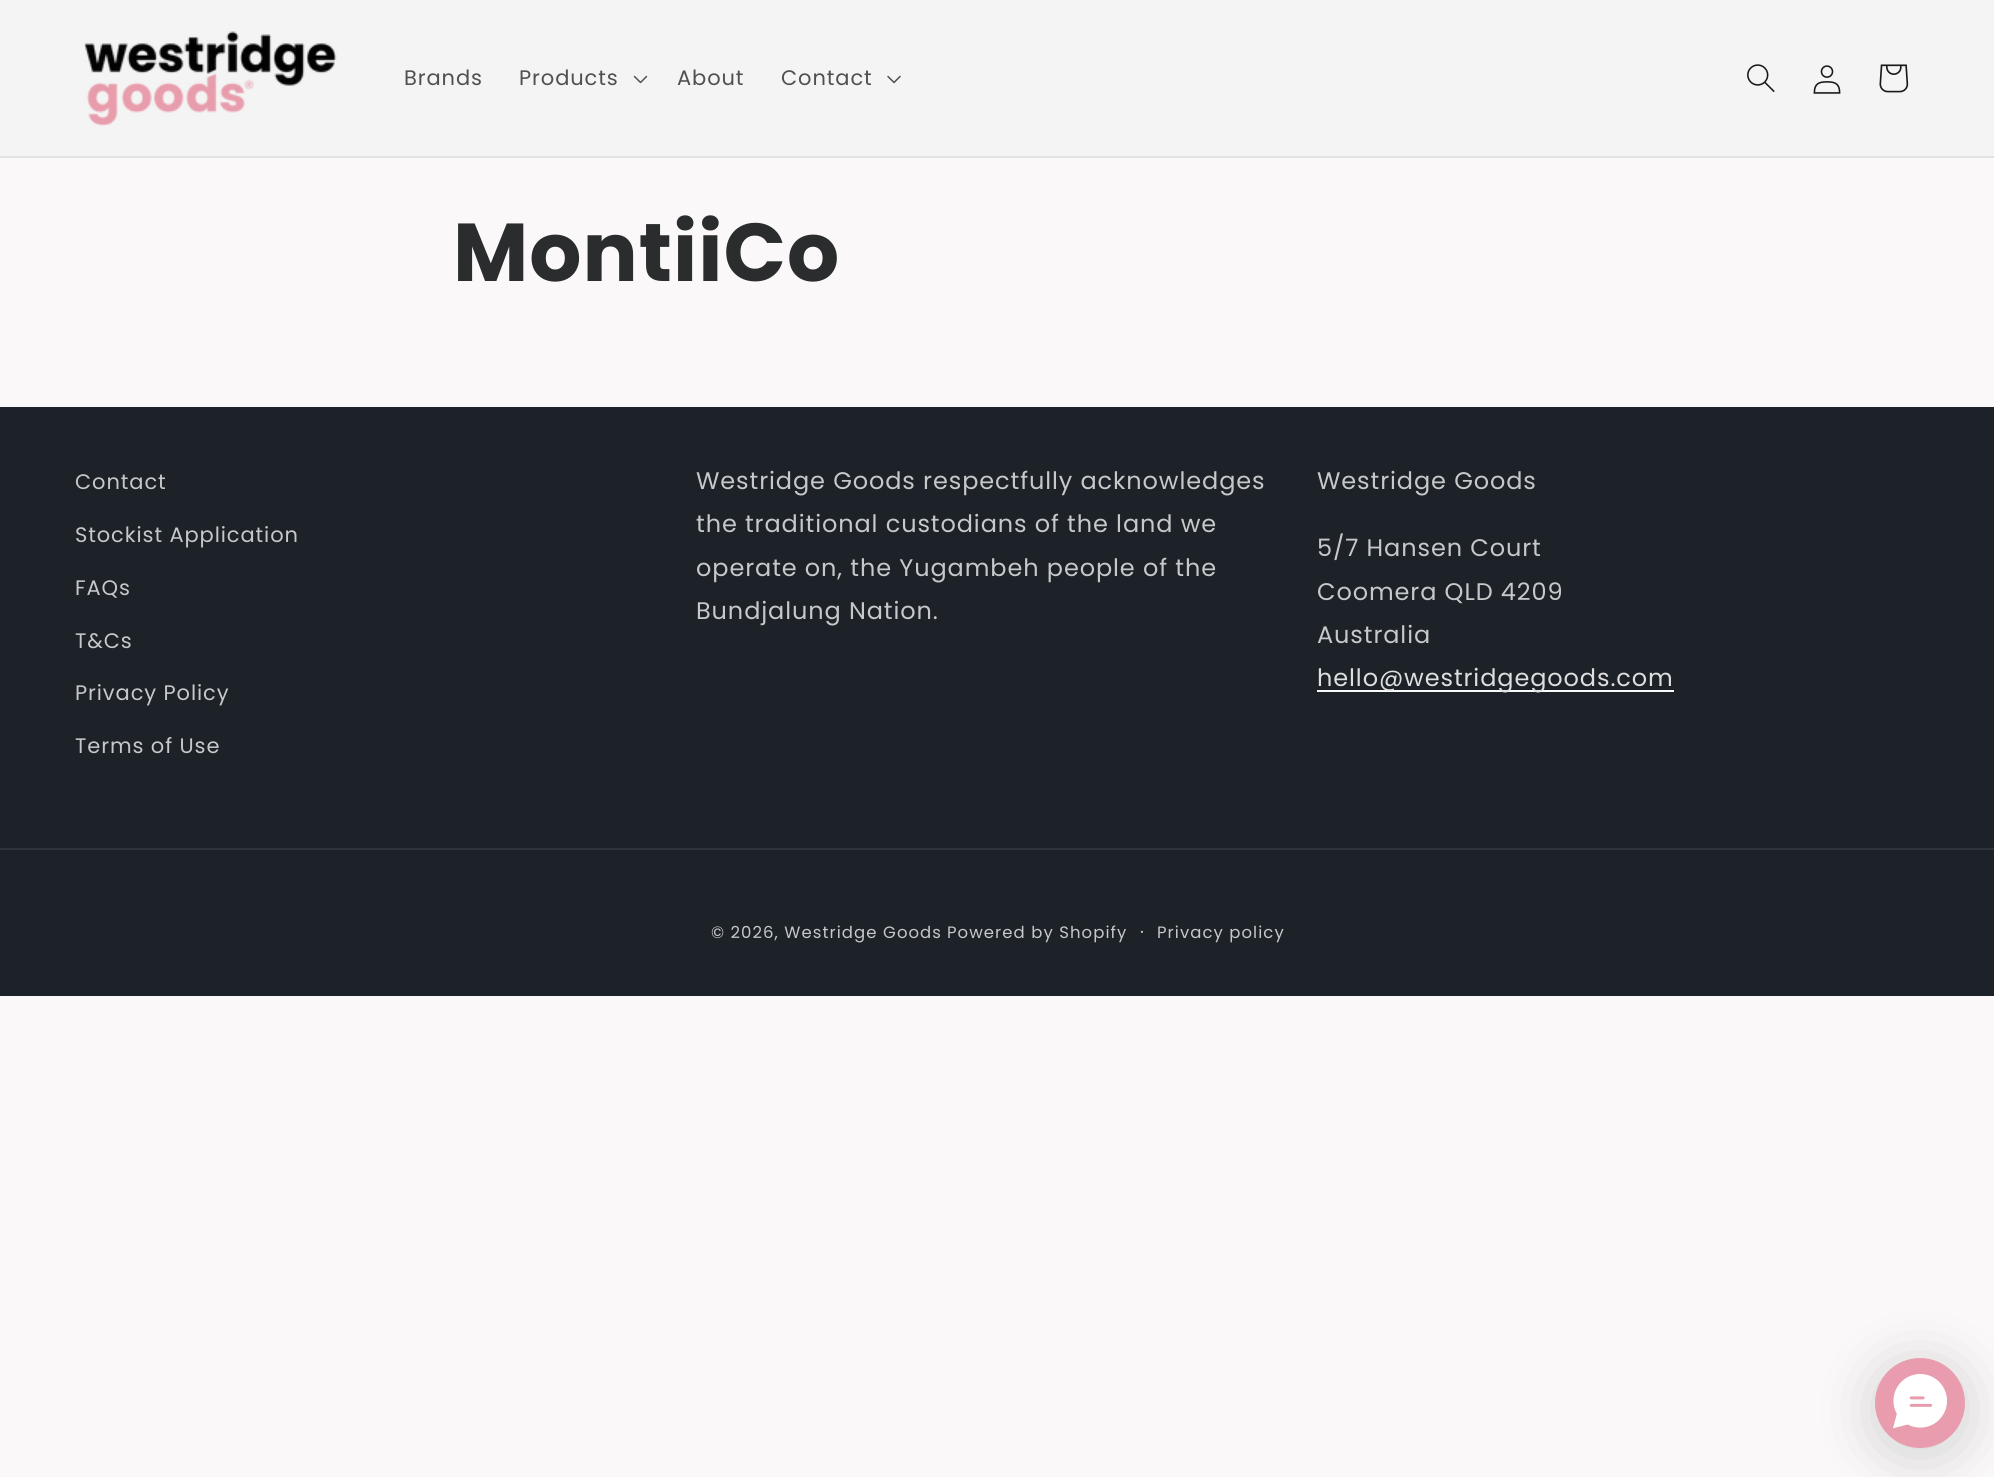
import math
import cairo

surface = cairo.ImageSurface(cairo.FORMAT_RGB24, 1994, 1477)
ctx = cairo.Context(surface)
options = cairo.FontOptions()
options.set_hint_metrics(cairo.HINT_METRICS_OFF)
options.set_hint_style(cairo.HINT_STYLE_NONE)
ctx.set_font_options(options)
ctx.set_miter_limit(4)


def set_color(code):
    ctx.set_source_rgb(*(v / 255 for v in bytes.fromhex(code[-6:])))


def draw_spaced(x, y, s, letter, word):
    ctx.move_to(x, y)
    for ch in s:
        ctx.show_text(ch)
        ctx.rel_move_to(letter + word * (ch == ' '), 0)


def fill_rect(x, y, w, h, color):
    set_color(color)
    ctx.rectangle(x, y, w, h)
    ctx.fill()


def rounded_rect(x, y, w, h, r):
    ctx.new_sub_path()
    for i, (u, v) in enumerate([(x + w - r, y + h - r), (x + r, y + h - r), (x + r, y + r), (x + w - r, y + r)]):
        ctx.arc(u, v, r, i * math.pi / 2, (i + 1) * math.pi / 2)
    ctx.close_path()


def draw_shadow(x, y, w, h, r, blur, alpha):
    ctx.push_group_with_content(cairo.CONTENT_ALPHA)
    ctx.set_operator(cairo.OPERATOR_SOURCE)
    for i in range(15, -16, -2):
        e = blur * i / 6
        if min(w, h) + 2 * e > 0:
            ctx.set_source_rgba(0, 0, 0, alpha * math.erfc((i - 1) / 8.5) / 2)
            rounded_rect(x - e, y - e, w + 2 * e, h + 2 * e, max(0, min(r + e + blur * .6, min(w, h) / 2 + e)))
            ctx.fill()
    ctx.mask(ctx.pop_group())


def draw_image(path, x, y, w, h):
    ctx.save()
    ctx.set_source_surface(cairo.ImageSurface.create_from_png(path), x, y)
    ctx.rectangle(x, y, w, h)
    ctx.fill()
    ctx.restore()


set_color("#faf8f8")
ctx.paint()
fill_rect(0, 0, 1994, 156, "#f4f4f4")
fill_rect(0, 156, 1994, 2, "#e2e2e2")
draw_image("assets/img1.png", 84, 31, 253, 95)
ctx.select_font_face("Poppins")
ctx.set_font_size(21)
set_color("#505050")
draw_spaced(404, 85, "Brands", 0.9, 0)
draw_spaced(519, 85, "Products", 0.9, 0)
draw_image("assets/img2.png", 633, 75, 15, 9)
draw_spaced(677, 85, "About", 0.9, 0)
draw_spaced(781, 85, "Contact", 0.9, 0)
draw_image("assets/img3.png", 887, 75, 14, 9)
draw_image("assets/img4.png", 1747, 64, 28, 28)
draw_image("assets/img5.png", 1813, 65, 28, 29)
draw_image("assets/img6.png", 1879, 64, 30, 29)
ctx.select_font_face("Poppins", cairo.FONT_SLANT_NORMAL, cairo.FONT_WEIGHT_BOLD)
ctx.set_font_size(82)
set_color("#2b2c2d")
draw_spaced(453, 281, "MontiiCo", 1, 0)
fill_rect(0, 407, 1994, 589, "#1c2228")
ctx.select_font_face("Poppins")
ctx.set_font_size(21)
set_color("#c6c8c9")
draw_spaced(75, 489, "Contact", 0.9, 0)
draw_spaced(75, 542, "Stockist Application", 0.9, 0)
draw_spaced(75, 595, "FAQs", 0.9, 0)
draw_spaced(75, 648, "T&Cs", 0.9, 0)
draw_spaced(75, 700, "Privacy Policy", 0.9, 0)
draw_spaced(75, 753, "Terms of Use", 0.9, 0)
ctx.set_font_size(24)
draw_spaced(696, 489, "Westridge Goods respectfully acknowledges", 0.9, 0)
draw_spaced(696, 532, "the traditional custodians of the land we", 0.9, 0)
draw_spaced(696, 576, "operate on, the Yugambeh people of the", 0.9, 0)
draw_spaced(696, 619, "Bundjalung Nation.", 0.9, 0)
draw_spaced(1317, 489, "Westridge Goods", 0.9, 0)
draw_spaced(1317, 556, "5/7 Hansen Court", 0.9, 0)
draw_spaced(1317, 600, "Coomera QLD 4209", 0.9, 0)
draw_spaced(1317, 643, "Australia", 0.9, 0)
fill_rect(1317, 690, 357, 2, "#fafafa")
set_color("#dededf")
draw_spaced(1317, 686, "hello@westridgegoods.com", 0.9, 0)
fill_rect(0, 848, 1994, 2, "#2e3439")
ctx.set_font_size(16.5)
set_color("#c6c8c9")
draw_spaced(711, 938, "© 2026, Westridge Goods", 1.05, 0)
draw_spaced(947, 938, "Powered by Shopify", 1.05, 0)
ctx.set_font_size(18)
draw_spaced(1140, 938, "·", 1.05, 0)
ctx.set_font_size(16.5)
draw_spaced(1157, 938, "Privacy policy", 1.05, 0)
set_color("#000000")
draw_shadow(1875, 1365, 90, 90, 45, 30, 0.16)
set_color("#e89cad")
ctx.arc(1920, 1403, 45, 0, 2 * math.pi)
ctx.fill()
draw_image("assets/img7.png", 1893, 1374, 54, 55)
surface.write_to_png("output.png")
